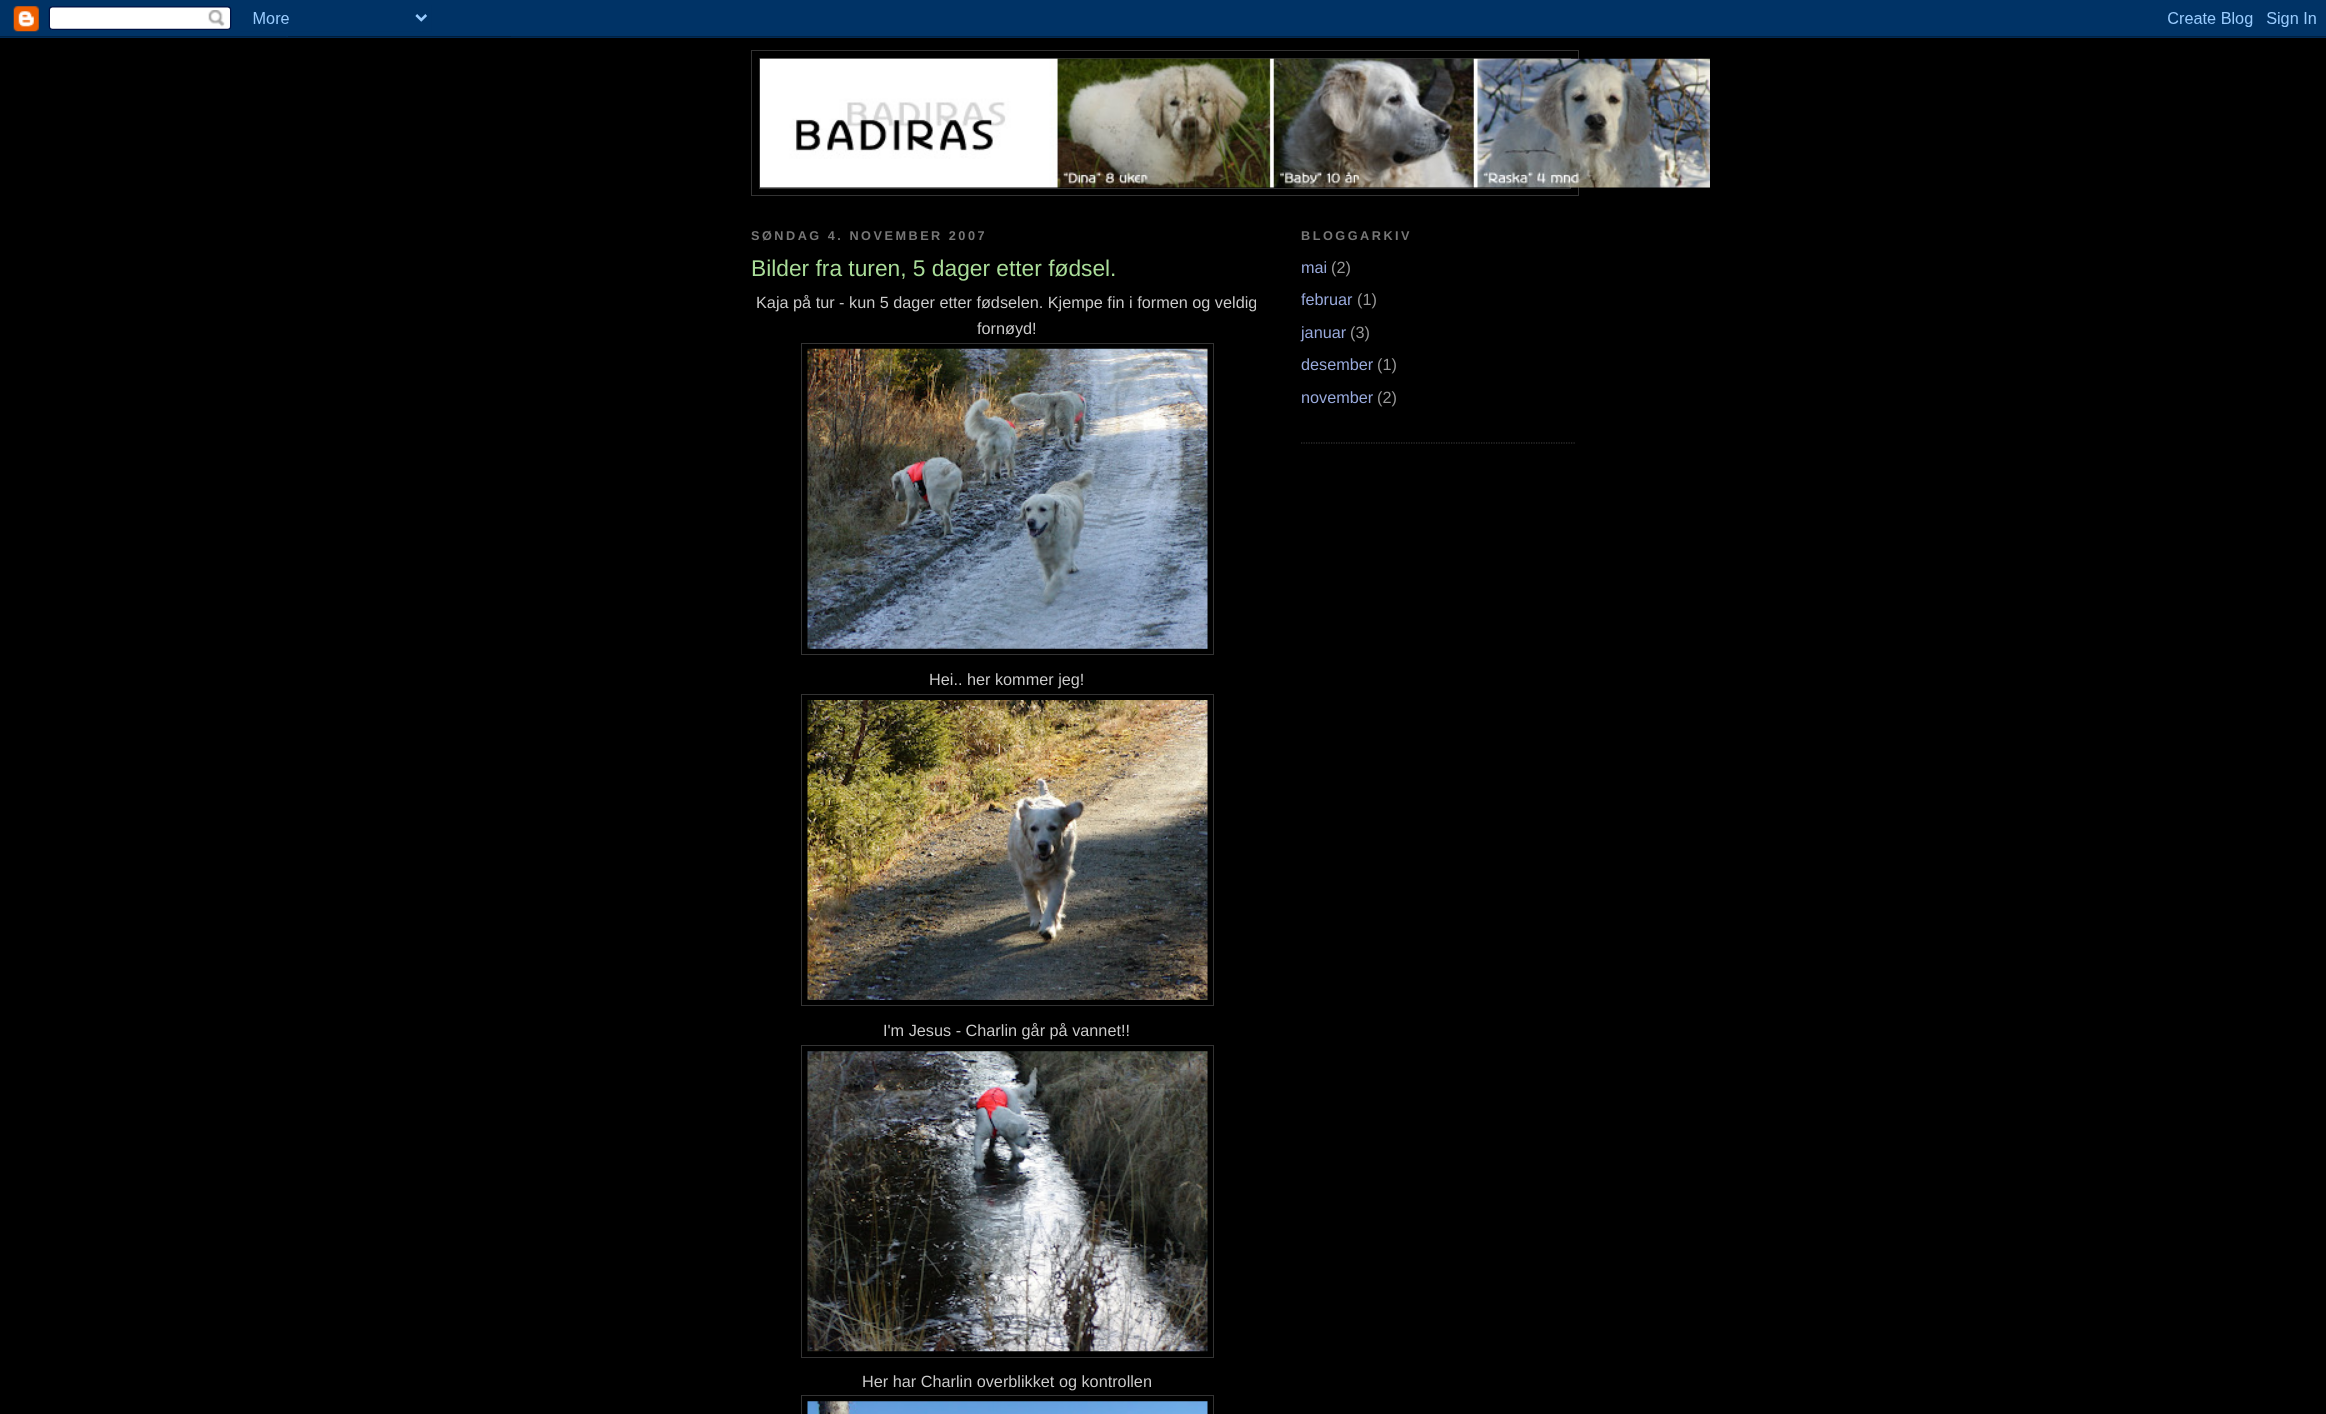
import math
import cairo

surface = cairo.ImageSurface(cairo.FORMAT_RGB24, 2326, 1414)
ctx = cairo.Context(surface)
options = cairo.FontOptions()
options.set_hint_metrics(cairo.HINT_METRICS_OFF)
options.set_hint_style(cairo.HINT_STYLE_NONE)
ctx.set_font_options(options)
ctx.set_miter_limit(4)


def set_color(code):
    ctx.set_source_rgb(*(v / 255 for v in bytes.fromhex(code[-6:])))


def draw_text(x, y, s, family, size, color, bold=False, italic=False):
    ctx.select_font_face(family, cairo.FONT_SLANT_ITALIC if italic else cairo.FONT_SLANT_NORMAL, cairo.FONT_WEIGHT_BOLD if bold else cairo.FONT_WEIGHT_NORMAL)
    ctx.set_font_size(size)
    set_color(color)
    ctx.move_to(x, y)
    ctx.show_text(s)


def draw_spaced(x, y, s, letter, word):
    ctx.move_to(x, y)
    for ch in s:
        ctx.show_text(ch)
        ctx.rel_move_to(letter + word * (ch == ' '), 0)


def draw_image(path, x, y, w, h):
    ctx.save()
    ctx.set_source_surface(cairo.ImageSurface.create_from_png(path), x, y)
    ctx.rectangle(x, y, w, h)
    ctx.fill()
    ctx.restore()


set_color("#000000")
ctx.paint()
draw_image("assets/img1.png", 0, 0, 2326, 38)
ctx.rectangle(751.5, 50.5, 827, 145)
set_color("#333333")
ctx.set_line_width(1)
ctx.stroke()
ctx.rectangle(759.5, 58.5, 811, 130)
ctx.stroke()
draw_image("assets/img2.png", 760, 58, 950, 130)
ctx.select_font_face("Liberation Sans", cairo.FONT_SLANT_NORMAL, cairo.FONT_WEIGHT_BOLD)
ctx.set_font_size(12.7)
set_color("#777777")
draw_spaced(751, 240, "SØNDAG 4. NOVEMBER 2007", 2.5, 0)
draw_text(751, 276, "Bilder fra turen, 5 dager etter fødsel.", "Liberation Sans", 22.75, "#aadd99")
draw_text(756, 308, "Kaja på tur - kun 5 dager etter fødselen. Kjempe fin i formen og veldig", "Liberation Sans", 16.25, "#cccccc")
draw_text(977, 334, "fornøyd!", "Liberation Sans", 16.25, "#cccccc")
ctx.rectangle(801.5, 343.5, 412, 311)
set_color("#333333")
ctx.stroke()
draw_image("assets/img3.png", 807, 348, 401, 301)
draw_text(929, 685, "Hei.. her kommer jeg!", "Liberation Sans", 16.25, "#cccccc")
ctx.rectangle(801.5, 694.5, 412, 311)
set_color("#333333")
ctx.stroke()
draw_image("assets/img4.png", 807, 700, 401, 300)
draw_text(883, 1036, "I'm Jesus - Charlin går på vannet!!", "Liberation Sans", 16.25, "#cccccc")
ctx.rectangle(801.5, 1045.5, 412, 312)
set_color("#333333")
ctx.stroke()
draw_image("assets/img5.png", 807, 1051, 401, 301)
draw_text(862, 1387, "Her har Charlin overblikket og kontrollen", "Liberation Sans", 16.25, "#cccccc")
ctx.rectangle(801.5, 1395.5, 412, 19)
set_color("#333333")
ctx.stroke()
draw_image("assets/img6.png", 807, 1401, 401, 13)
ctx.new_path()
ctx.move_to(1301, 443)
ctx.line_to(1576, 443)
ctx.set_line_width(1.2)
ctx.set_dash([1.25, 1.25])
ctx.stroke()
ctx.select_font_face("Liberation Sans", cairo.FONT_SLANT_NORMAL, cairo.FONT_WEIGHT_BOLD)
ctx.set_font_size(12.7)
set_color("#777777")
draw_spaced(1301, 240, "BLOGGARKIV", 2.5, 0)
draw_text(1301, 273, "mai", "Liberation Sans", 16.25, "#99aadd")
draw_text(1331, 273, "(2)", "Liberation Sans", 16.25, "#999999")
draw_text(1301, 305, "februar", "Liberation Sans", 16.25, "#99aadd")
draw_text(1357, 305, "(1)", "Liberation Sans", 16.25, "#999999")
draw_text(1301, 338, "januar", "Liberation Sans", 16.25, "#99aadd")
draw_text(1350, 338, "(3)", "Liberation Sans", 16.25, "#999999")
draw_text(1301, 370, "desember", "Liberation Sans", 16.25, "#99aadd")
draw_text(1377, 370, "(1)", "Liberation Sans", 16.25, "#999999")
draw_text(1301, 403, "november", "Liberation Sans", 16.25, "#99aadd")
draw_text(1377, 403, "(2)", "Liberation Sans", 16.25, "#999999")
surface.write_to_png("output.png")
